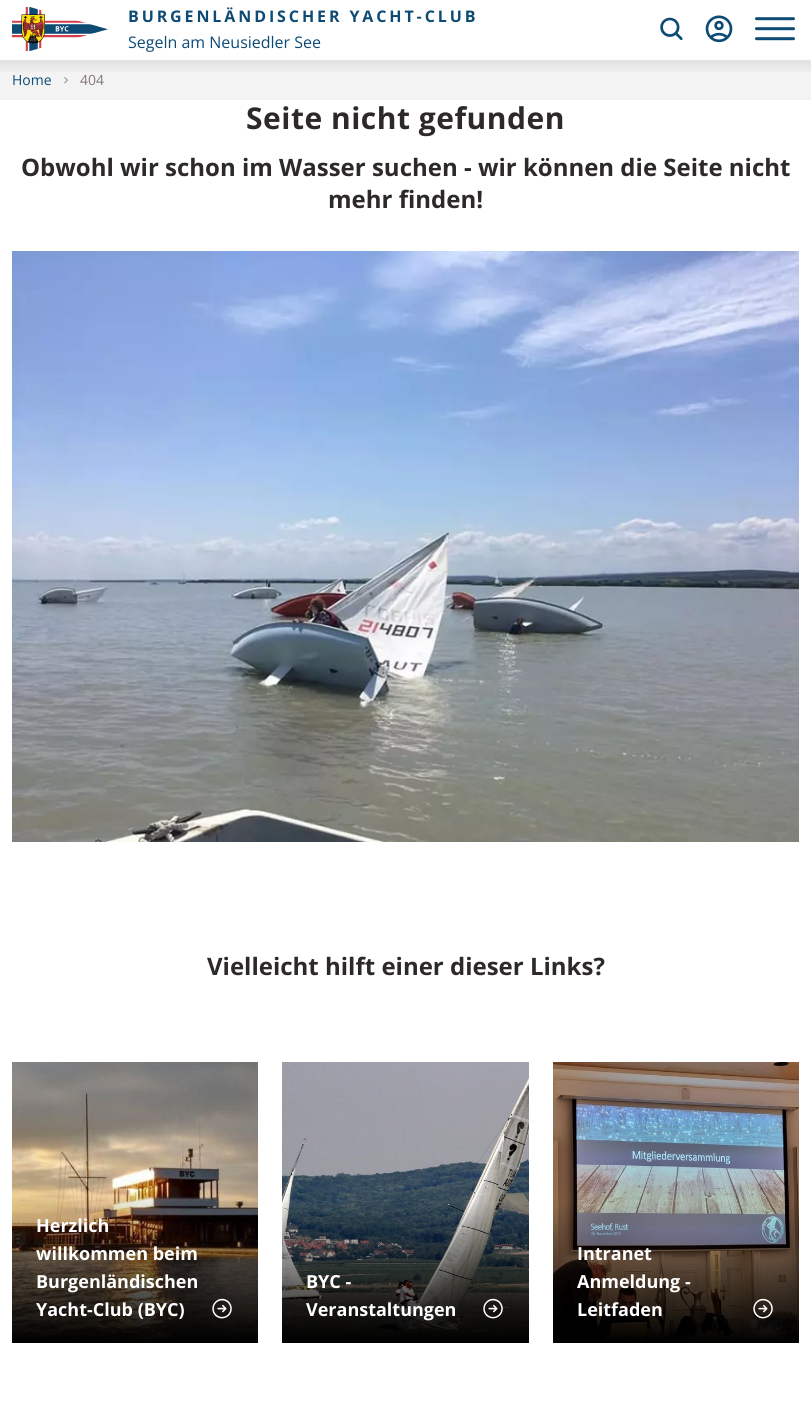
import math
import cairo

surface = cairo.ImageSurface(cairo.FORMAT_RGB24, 811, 1418)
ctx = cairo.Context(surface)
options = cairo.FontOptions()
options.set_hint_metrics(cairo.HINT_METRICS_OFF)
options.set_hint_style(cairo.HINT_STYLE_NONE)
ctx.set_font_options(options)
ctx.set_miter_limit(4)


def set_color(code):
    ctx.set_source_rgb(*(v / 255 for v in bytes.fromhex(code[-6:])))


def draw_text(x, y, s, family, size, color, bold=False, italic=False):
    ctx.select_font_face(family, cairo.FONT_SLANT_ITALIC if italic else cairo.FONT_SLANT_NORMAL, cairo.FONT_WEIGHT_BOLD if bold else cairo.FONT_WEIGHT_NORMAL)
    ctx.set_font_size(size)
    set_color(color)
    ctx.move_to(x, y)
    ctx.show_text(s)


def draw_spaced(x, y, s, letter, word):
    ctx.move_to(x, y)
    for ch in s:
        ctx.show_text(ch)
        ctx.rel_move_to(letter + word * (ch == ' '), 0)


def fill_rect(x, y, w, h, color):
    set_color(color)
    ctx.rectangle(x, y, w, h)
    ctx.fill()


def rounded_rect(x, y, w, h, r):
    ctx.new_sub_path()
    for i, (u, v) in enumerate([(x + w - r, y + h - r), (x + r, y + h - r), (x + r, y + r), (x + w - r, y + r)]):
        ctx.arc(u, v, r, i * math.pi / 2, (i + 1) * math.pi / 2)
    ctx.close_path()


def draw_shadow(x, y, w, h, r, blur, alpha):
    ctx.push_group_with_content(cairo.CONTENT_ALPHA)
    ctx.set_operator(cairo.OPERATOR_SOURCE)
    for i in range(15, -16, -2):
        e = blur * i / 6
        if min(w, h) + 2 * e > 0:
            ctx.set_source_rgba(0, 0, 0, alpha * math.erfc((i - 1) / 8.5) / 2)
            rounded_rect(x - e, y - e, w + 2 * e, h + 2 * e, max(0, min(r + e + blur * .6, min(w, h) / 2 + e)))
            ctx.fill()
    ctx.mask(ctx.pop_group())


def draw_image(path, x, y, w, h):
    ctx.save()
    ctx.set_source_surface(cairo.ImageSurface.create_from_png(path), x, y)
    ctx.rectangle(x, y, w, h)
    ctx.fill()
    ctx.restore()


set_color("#ffffff")
ctx.paint()
fill_rect(0, 60, 811, 40, "#f2f3f2")
draw_image("assets/img5.png", 64, 77, 4, 7)
ctx.save()
ctx.rectangle(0, 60, 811, 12)
ctx.clip()
set_color("#000000")
draw_shadow(-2, 3, 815, 64, 0, 7, 0.09)
ctx.restore()
draw_image("assets/img1.png", 12, 7, 96, 44)
ctx.select_font_face("Open Sans", cairo.FONT_SLANT_NORMAL, cairo.FONT_WEIGHT_BOLD)
ctx.set_font_size(16)
set_color("#0d4b75")
draw_spaced(128, 22, "BURGENLÄNDISCHER YACHT-CLUB", 2.9, 0)
draw_text(128, 48, "Segeln am Neusiedler See", "Open Sans", 16, "#0d4b75")
draw_image("assets/img2.png", 660, 17, 23, 24)
draw_image("assets/img3.png", 705, 15, 28, 28)
draw_image("assets/img4.png", 755, 17, 40, 24)
draw_text(12, 85, "Home", "Open Sans", 14, "#0d4b75")
draw_text(80, 85, "404", "Open Sans", 14, "#857878")
ctx.select_font_face("Open Sans", cairo.FONT_SLANT_NORMAL, cairo.FONT_WEIGHT_BOLD)
ctx.set_font_size(30)
set_color("#2e2929")
draw_spaced(246, 129, "Seite nicht gefunden", 0.5, 0)
draw_text(21, 176, "Obwohl wir schon im Wasser suchen - wir können die Seite nicht", "Open Sans", 24, "#2e2929", bold=True)
draw_text(328, 208, "mehr finden!", "Open Sans", 24, "#2e2929", bold=True)
draw_image("assets/img6.png", 12, 251, 787, 591)
draw_text(207, 975, "Vielleicht hilft einer dieser Links?", "Open Sans", 24, "#2e2929", bold=True)
draw_image("assets/img7.png", 12, 1062, 246, 281)
draw_text(36, 1232, "Herzlich", "Open Sans", 18, "#ffffff", bold=True)
draw_text(36, 1260, "willkommen beim", "Open Sans", 18, "#ffffff", bold=True)
draw_text(36, 1288, "Burgenländischen", "Open Sans", 18, "#ffffff", bold=True)
draw_text(36, 1316, "Yacht-Club (BYC)", "Open Sans", 18, "#ffffff", bold=True)
draw_image("assets/img8.png", 212, 1298, 20, 21)
draw_image("assets/img9.png", 282, 1062, 247, 281)
draw_text(306, 1288, "BYC -", "Open Sans", 18, "#ffffff", bold=True)
draw_text(306, 1316, "Veranstaltungen", "Open Sans", 18, "#ffffff", bold=True)
draw_image("assets/img10.png", 483, 1298, 20, 21)
draw_image("assets/img11.png", 553, 1062, 246, 281)
draw_text(577, 1260, "Intranet", "Open Sans", 18, "#ffffff", bold=True)
draw_text(577, 1288, "Anmeldung -", "Open Sans", 18, "#ffffff", bold=True)
draw_text(577, 1316, "Leitfaden", "Open Sans", 18, "#ffffff", bold=True)
draw_image("assets/img12.png", 753, 1298, 20, 21)
surface.write_to_png("output.png")
